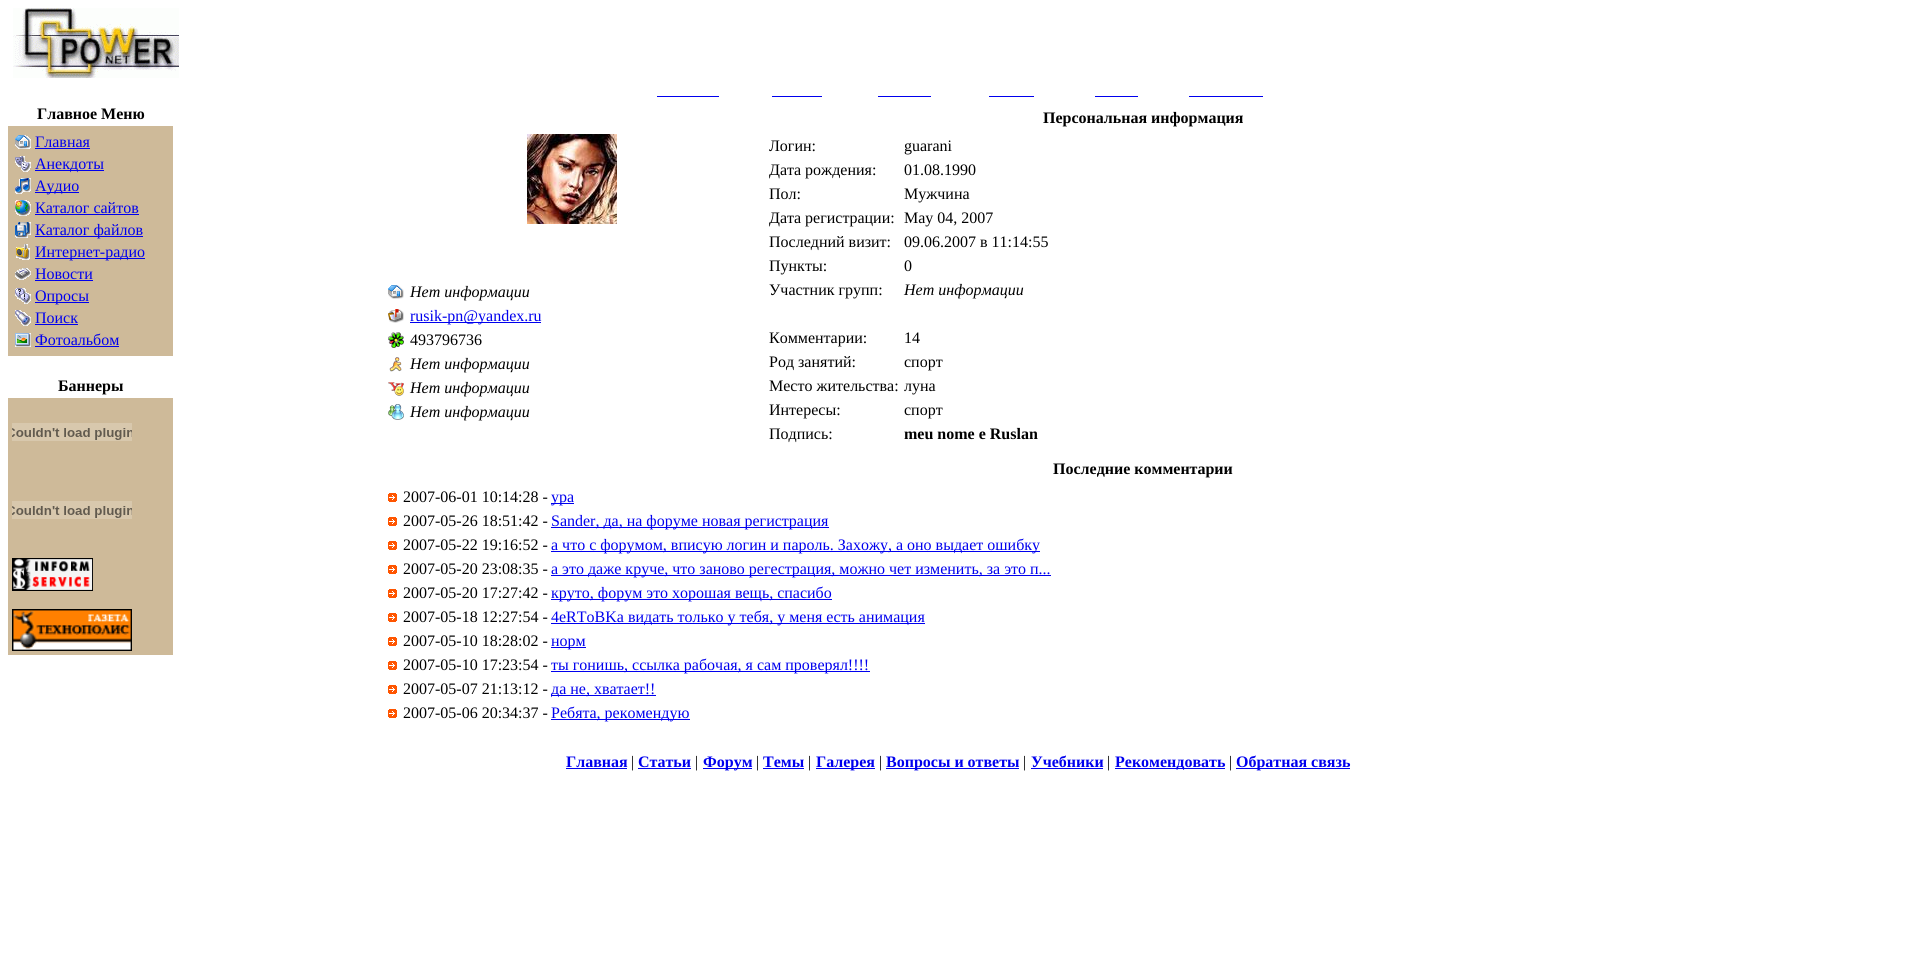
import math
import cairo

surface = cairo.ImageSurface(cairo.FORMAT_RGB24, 1916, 967)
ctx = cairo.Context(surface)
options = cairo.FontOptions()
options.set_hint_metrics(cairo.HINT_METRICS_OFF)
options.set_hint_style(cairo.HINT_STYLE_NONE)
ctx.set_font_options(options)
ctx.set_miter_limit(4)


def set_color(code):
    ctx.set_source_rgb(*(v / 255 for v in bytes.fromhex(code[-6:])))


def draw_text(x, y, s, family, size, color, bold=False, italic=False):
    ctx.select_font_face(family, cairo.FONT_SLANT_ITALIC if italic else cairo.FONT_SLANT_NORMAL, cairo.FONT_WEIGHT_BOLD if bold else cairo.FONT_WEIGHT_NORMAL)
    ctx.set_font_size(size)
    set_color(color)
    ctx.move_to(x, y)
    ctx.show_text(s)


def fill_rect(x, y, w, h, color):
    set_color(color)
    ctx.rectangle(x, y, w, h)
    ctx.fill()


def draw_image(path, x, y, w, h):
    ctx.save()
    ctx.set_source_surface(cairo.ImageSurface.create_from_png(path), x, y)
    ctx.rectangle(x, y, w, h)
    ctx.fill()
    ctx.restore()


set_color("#ffffff")
ctx.paint()
draw_image("assets/img1.png", 13, 8, 166, 70)
fill_rect(657, 96, 62, 1, "#0000ee")
fill_rect(772, 96, 50, 1, "#0000ee")
fill_rect(878, 96, 53, 1, "#0000ee")
fill_rect(989, 96, 45, 1, "#0000ee")
fill_rect(1095, 96, 43, 1, "#0000ee")
fill_rect(1189, 96, 74, 1, "#0000ee")
draw_text(37, 119, "Главное Меню", "Liberation Serif", 16, "#000000", bold=True)
fill_rect(8, 126, 165, 230, "#ceba99")
draw_image("assets/img2.png", 15, 135, 16, 14)
draw_text(35, 147, "Главная", "Liberation Serif", 16, "#0000ee")
fill_rect(35, 148, 55, 1, "#0000ee")
draw_image("assets/img3.png", 15, 156, 16, 16)
fill_rect(35, 170, 69, 1, "#0000ee")
draw_text(35, 169, "Анекдоты", "Liberation Serif", 16, "#0000ee")
draw_image("assets/img4.png", 15, 178, 16, 16)
fill_rect(35, 192, 44, 1, "#0000ee")
draw_text(35, 191, "Аудио", "Liberation Serif", 16, "#0000ee")
draw_image("assets/img5.png", 15, 200, 16, 16)
draw_text(35, 213, "Каталог сайтов", "Liberation Serif", 16, "#0000ee")
fill_rect(35, 214, 104, 1, "#0000ee")
draw_image("assets/img6.png", 15, 222, 16, 16)
fill_rect(35, 236, 108, 1, "#0000ee")
draw_text(35, 235, "Каталог файлов", "Liberation Serif", 16, "#0000ee")
draw_image("assets/img7.png", 16, 244, 14, 16)
fill_rect(35, 258, 110, 1, "#0000ee")
draw_text(35, 257, "Интернет-радио", "Liberation Serif", 16, "#0000ee")
draw_image("assets/img8.png", 15, 268, 16, 12)
draw_text(35, 279, "Новости", "Liberation Serif", 16, "#0000ee")
fill_rect(35, 280, 58, 1, "#0000ee")
draw_image("assets/img9.png", 15, 288, 16, 16)
fill_rect(35, 302, 54, 1, "#0000ee")
draw_text(35, 301, "Опросы", "Liberation Serif", 16, "#0000ee")
draw_image("assets/img10.png", 15, 310, 16, 16)
draw_text(35, 323, "Поиск", "Liberation Serif", 16, "#0000ee")
fill_rect(35, 324, 43, 1, "#0000ee")
draw_image("assets/img11.png", 15, 333, 16, 14)
draw_text(35, 345, "Фотоальбом", "Liberation Serif", 16, "#0000ee")
fill_rect(35, 346, 84, 1, "#0000ee")
draw_text(58, 391, "Баннеры", "Liberation Serif", 16, "#000000", bold=True)
fill_rect(8, 398, 165, 257, "#ceba99")
draw_image("assets/img12.png", 12, 423, 120, 18)
draw_image("assets/img12.png", 12, 501, 120, 18)
draw_image("assets/img13.png", 12, 558, 81, 33)
draw_image("assets/img14.png", 12, 609, 120, 42)
draw_text(1043, 123, "Персональная информация", "Liberation Serif", 16, "#000000", bold=True)
draw_image("assets/img15.png", 388, 285, 16, 14)
draw_text(410, 297, "Нет информации", "Liberation Serif", 16, "#000000", italic=True)
draw_image("assets/img16.png", 388, 309, 16, 14)
fill_rect(410, 322, 131, 1, "#0000ee")
draw_text(410, 321, "rusik-pn@yandex.ru", "Liberation Serif", 16, "#0000ee")
draw_image("assets/img17.png", 388, 332, 16, 16)
draw_text(410, 345, "493796736", "Liberation Serif", 16, "#000000")
draw_image("assets/img18.png", 389, 357, 13, 15)
draw_text(410, 369, "Нет информации", "Liberation Serif", 16, "#000000", italic=True)
draw_image("assets/img19.png", 388, 382, 16, 14)
draw_text(410, 393, "Нет информации", "Liberation Serif", 16, "#000000", italic=True)
draw_image("assets/img20.png", 388, 404, 16, 16)
draw_text(410, 417, "Нет информации", "Liberation Serif", 16, "#000000", italic=True)
draw_image("assets/img21.png", 527, 134, 90, 90)
draw_text(769, 151, "Логин:", "Liberation Serif", 16, "#000000")
draw_text(904, 151, "guarani", "Liberation Serif", 16, "#000000")
draw_text(769, 175, "Дата рождения:", "Liberation Serif", 16, "#000000")
draw_text(904, 175, "01.08.1990", "Liberation Serif", 16, "#000000")
draw_text(769, 199, "Пол:", "Liberation Serif", 16, "#000000")
draw_text(904, 199, "Мужчина", "Liberation Serif", 16, "#000000")
draw_text(769, 223, "Дата регистрации:", "Liberation Serif", 16, "#000000")
draw_text(904, 223, "May 04, 2007", "Liberation Serif", 16, "#000000")
draw_text(769, 247, "Последний визит:", "Liberation Serif", 16, "#000000")
draw_text(904, 247, "09.06.2007 в 11:14:55", "Liberation Serif", 16, "#000000")
draw_text(769, 271, "Пункты:", "Liberation Serif", 16, "#000000")
draw_text(904, 271, "0", "Liberation Serif", 16, "#000000")
draw_text(769, 295, "Участник групп:", "Liberation Serif", 16, "#000000")
draw_text(904, 295, "Нет информации", "Liberation Serif", 16, "#000000", italic=True)
draw_text(769, 343, "Комментарии:", "Liberation Serif", 16, "#000000")
draw_text(904, 343, "14", "Liberation Serif", 16, "#000000")
draw_text(769, 367, "Род занятий:", "Liberation Serif", 16, "#000000")
draw_text(904, 367, "спорт", "Liberation Serif", 16, "#000000")
draw_text(769, 391, "Место жительства:", "Liberation Serif", 16, "#000000")
draw_text(904, 391, "луна", "Liberation Serif", 16, "#000000")
draw_text(769, 415, "Интересы:", "Liberation Serif", 16, "#000000")
draw_text(904, 415, "спорт", "Liberation Serif", 16, "#000000")
draw_text(769, 439, "Подпись:", "Liberation Serif", 16, "#000000")
draw_text(904, 439, "meu nome e Ruslan", "Liberation Serif", 16, "#000000", bold=True)
draw_text(1053, 474, "Последние комментарии", "Liberation Serif", 16, "#000000", bold=True)
draw_image("assets/img22.png", 388, 493, 9, 9)
draw_text(403, 502, "2007-06-01 10:14:28 -", "Liberation Serif", 16, "#000000")
fill_rect(551, 503, 23, 1, "#0000ee")
draw_text(551, 502, "ура", "Liberation Serif", 16, "#0000ee")
draw_image("assets/img22.png", 388, 517, 9, 9)
draw_text(403, 526, "2007-05-26 18:51:42 -", "Liberation Serif", 16, "#000000")
fill_rect(551, 527, 278, 1, "#0000ee")
draw_text(551, 526, "Sander, да, на форуме новая регистрация", "Liberation Serif", 16, "#0000ee")
draw_image("assets/img22.png", 388, 541, 9, 9)
draw_text(403, 550, "2007-05-22 19:16:52 -", "Liberation Serif", 16, "#000000")
fill_rect(551, 551, 489, 1, "#0000ee")
draw_text(551, 550, "а что с форумом, вписую логин и пароль. Захожу, а оно выдает ошибку", "Liberation Serif", 16, "#0000ee")
draw_image("assets/img22.png", 388, 565, 9, 9)
draw_text(403, 574, "2007-05-20 23:08:35 -", "Liberation Serif", 16, "#000000")
fill_rect(551, 575, 500, 1, "#0000ee")
draw_text(551, 574, "а это даже круче, что заново регестрация, можно чет изменить, за это п...", "Liberation Serif", 16, "#0000ee")
draw_image("assets/img22.png", 388, 589, 9, 9)
draw_text(403, 598, "2007-05-20 17:27:42 -", "Liberation Serif", 16, "#000000")
fill_rect(551, 599, 281, 1, "#0000ee")
draw_text(551, 598, "круто, форум это хорошая вещь, спасибо", "Liberation Serif", 16, "#0000ee")
draw_image("assets/img22.png", 388, 613, 9, 9)
draw_text(403, 622, "2007-05-18 12:27:54 -", "Liberation Serif", 16, "#000000")
fill_rect(551, 623, 374, 1, "#0000ee")
draw_text(551, 622, "4eRToBKa видать только у тебя, у меня есть анимация", "Liberation Serif", 16, "#0000ee")
draw_image("assets/img22.png", 388, 637, 9, 9)
draw_text(403, 646, "2007-05-10 18:28:02 -", "Liberation Serif", 16, "#000000")
fill_rect(551, 647, 35, 1, "#0000ee")
draw_text(551, 646, "норм", "Liberation Serif", 16, "#0000ee")
draw_image("assets/img22.png", 388, 661, 9, 9)
draw_text(403, 670, "2007-05-10 17:23:54 -", "Liberation Serif", 16, "#000000")
fill_rect(551, 671, 319, 1, "#0000ee")
draw_text(551, 670, "ты гонишь, ссылка рабочая, я сам проверял!!!!", "Liberation Serif", 16, "#0000ee")
draw_image("assets/img22.png", 388, 685, 9, 9)
draw_text(403, 694, "2007-05-07 21:13:12 -", "Liberation Serif", 16, "#000000")
fill_rect(551, 695, 105, 1, "#0000ee")
draw_text(551, 694, "да не, хватает!!", "Liberation Serif", 16, "#0000ee")
draw_image("assets/img22.png", 388, 709, 9, 9)
draw_text(403, 718, "2007-05-06 20:34:37 -", "Liberation Serif", 16, "#000000")
fill_rect(551, 719, 139, 1, "#0000ee")
draw_text(551, 718, "Ребята, рекомендую", "Liberation Serif", 16, "#0000ee")
draw_text(566, 767, "Главная", "Liberation Serif", 16, "#0000ee", bold=True)
fill_rect(566, 768, 61, 1, "#0000ee")
draw_text(631, 767, "|", "Liberation Serif", 16, "#000000")
draw_text(638, 767, "Статьи", "Liberation Serif", 16, "#0000ee", bold=True)
fill_rect(638, 768, 53, 1, "#0000ee")
draw_text(695, 767, "|", "Liberation Serif", 16, "#000000")
fill_rect(703, 768, 49, 1, "#0000ee")
draw_text(703, 767, "Форум", "Liberation Serif", 16, "#0000ee", bold=True)
draw_text(756, 767, "|", "Liberation Serif", 16, "#000000")
draw_text(763, 767, "Темы", "Liberation Serif", 16, "#0000ee", bold=True)
fill_rect(763, 768, 41, 1, "#0000ee")
draw_text(808, 767, "|", "Liberation Serif", 16, "#000000")
fill_rect(816, 768, 59, 1, "#0000ee")
draw_text(816, 767, "Галерея", "Liberation Serif", 16, "#0000ee", bold=True)
draw_text(879, 767, "|", "Liberation Serif", 16, "#000000")
fill_rect(886, 768, 133, 1, "#0000ee")
draw_text(886, 767, "Вопросы и ответы", "Liberation Serif", 16, "#0000ee", bold=True)
draw_text(1023, 767, "|", "Liberation Serif", 16, "#000000")
draw_text(1031, 767, "Учебники", "Liberation Serif", 16, "#0000ee", bold=True)
fill_rect(1031, 768, 72, 1, "#0000ee")
draw_text(1107, 767, "|", "Liberation Serif", 16, "#000000")
fill_rect(1115, 768, 110, 1, "#0000ee")
draw_text(1115, 767, "Рекомендовать", "Liberation Serif", 16, "#0000ee", bold=True)
draw_text(1229, 767, "|", "Liberation Serif", 16, "#000000")
fill_rect(1236, 768, 114, 1, "#0000ee")
draw_text(1236, 767, "Обратная связь", "Liberation Serif", 16, "#0000ee", bold=True)
surface.write_to_png("output.png")
